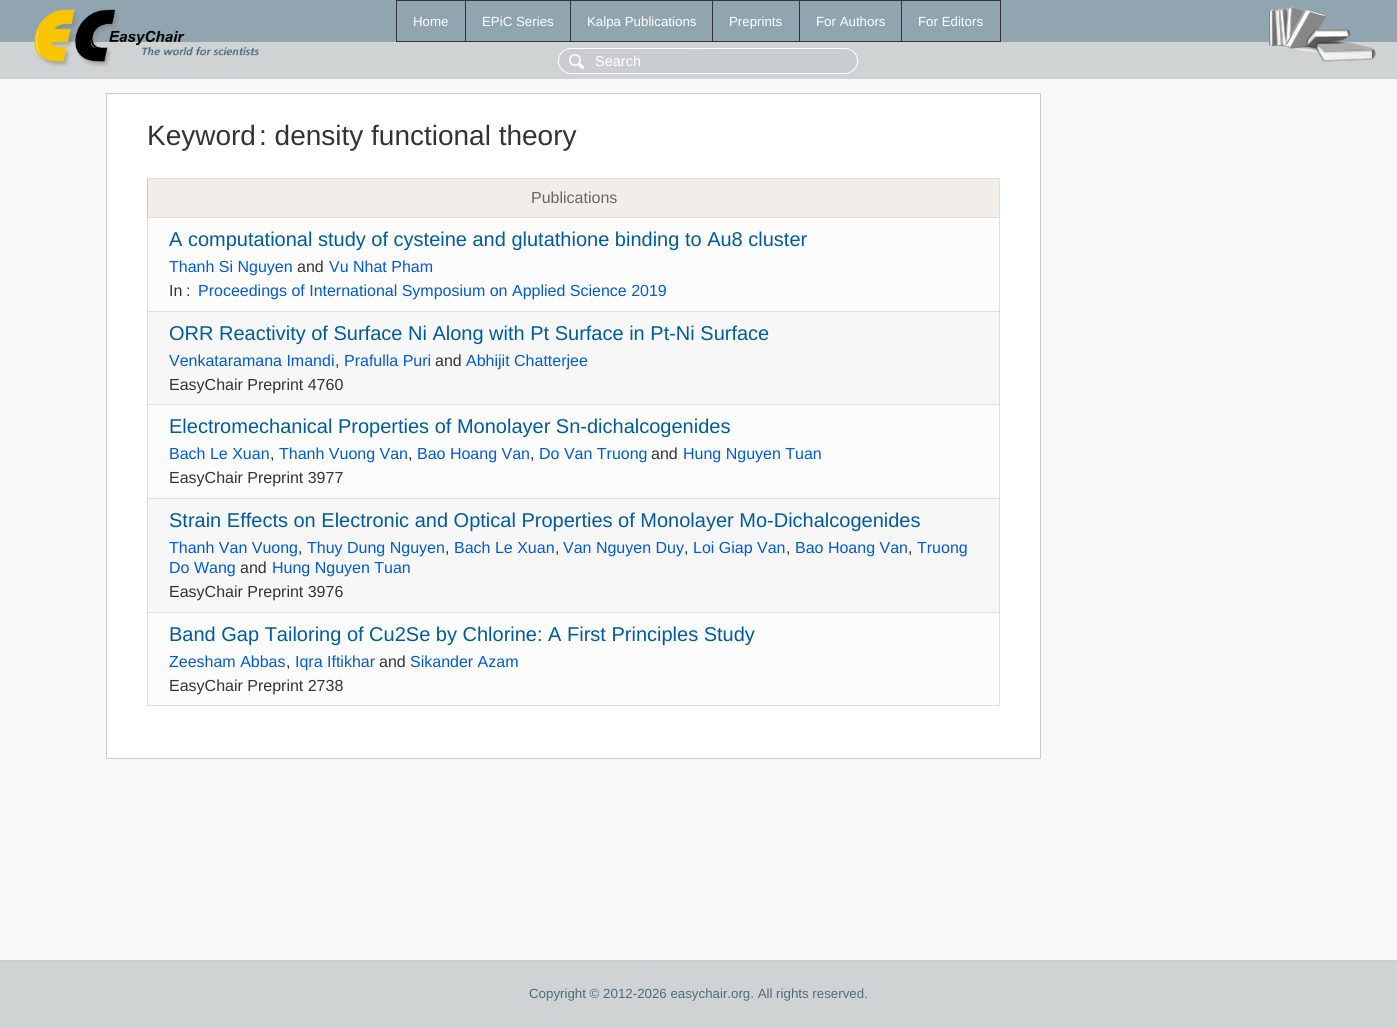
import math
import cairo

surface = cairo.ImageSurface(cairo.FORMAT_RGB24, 1397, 1028)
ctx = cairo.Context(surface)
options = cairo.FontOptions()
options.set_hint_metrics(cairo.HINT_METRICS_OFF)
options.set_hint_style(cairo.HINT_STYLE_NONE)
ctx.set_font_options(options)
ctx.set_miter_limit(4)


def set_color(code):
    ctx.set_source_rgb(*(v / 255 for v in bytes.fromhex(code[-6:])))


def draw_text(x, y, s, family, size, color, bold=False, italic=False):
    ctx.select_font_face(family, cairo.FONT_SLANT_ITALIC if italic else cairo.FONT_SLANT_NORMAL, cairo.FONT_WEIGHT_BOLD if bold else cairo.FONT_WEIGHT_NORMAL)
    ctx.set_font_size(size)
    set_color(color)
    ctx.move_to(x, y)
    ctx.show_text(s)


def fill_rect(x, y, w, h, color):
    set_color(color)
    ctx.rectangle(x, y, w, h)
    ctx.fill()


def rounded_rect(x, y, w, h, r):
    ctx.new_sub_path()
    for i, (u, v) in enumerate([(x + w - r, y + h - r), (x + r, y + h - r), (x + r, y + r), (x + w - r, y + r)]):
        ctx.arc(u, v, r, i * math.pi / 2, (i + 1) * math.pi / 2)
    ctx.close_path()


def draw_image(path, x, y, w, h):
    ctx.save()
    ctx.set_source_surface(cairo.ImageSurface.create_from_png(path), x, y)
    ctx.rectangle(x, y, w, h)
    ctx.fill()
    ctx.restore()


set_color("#90a5b0")
ctx.paint()
fill_rect(0, 43, 1396, 35, "#d0d3d4")
fill_rect(0, 42, 1397, 1, "#d0d3d4")
draw_image("assets/img1.png", 34, 9, 225, 58)
fill_rect(901, 0, 100, 1, "#333333")
fill_rect(1000, 0, 1, 42, "#333333")
fill_rect(901, 41, 100, 1, "#333333")
fill_rect(901, 0, 1, 42, "#333333")
fill_rect(799, 0, 103, 1, "#333333")
fill_rect(799, 41, 103, 1, "#333333")
fill_rect(799, 0, 1, 42, "#333333")
fill_rect(712, 0, 88, 1, "#333333")
fill_rect(712, 41, 88, 1, "#333333")
fill_rect(712, 0, 1, 42, "#333333")
fill_rect(570, 0, 143, 1, "#333333")
fill_rect(570, 41, 143, 1, "#333333")
fill_rect(570, 0, 1, 42, "#333333")
fill_rect(465, 0, 106, 1, "#333333")
fill_rect(465, 41, 106, 1, "#333333")
fill_rect(465, 0, 1, 42, "#333333")
fill_rect(396, 0, 70, 1, "#333333")
fill_rect(396, 41, 70, 1, "#333333")
fill_rect(396, 0, 1, 42, "#333333")
draw_text(413, 26, "Home", "Liberation Sans", 13.3, "#ffffff")
draw_text(482, 26, "EPiC Series", "Liberation Sans", 13.3, "#ffffff")
draw_text(587, 26, "Kalpa Publications", "Liberation Sans", 13.3, "#ffffff")
draw_text(729, 26, "Preprints", "Liberation Sans", 13.3, "#ffffff")
draw_text(816, 26, "For Authors", "Liberation Sans", 13.3, "#ffffff")
draw_text(918, 26, "For Editors", "Liberation Sans", 13.3, "#ffffff")
draw_image("assets/img2.png", 1269, 6, 107, 56)
fill_rect(1396, 42, 1, 37, "#d0d3d4")
fill_rect(0, 78, 1397, 1, "#d0d3d4")
set_color("#c9cdd0")
rounded_rect(558, 48, 300, 26, 13)
ctx.fill()
draw_image("assets/img3.png", 569, 54, 15, 15)
rounded_rect(558.5, 48.5, 299, 25, 12.5)
set_color("#ffffff")
ctx.set_line_width(1)
ctx.stroke()
draw_text(595, 66, "Search", "Liberation Sans", 14.5, "#ffffff")
fill_rect(0, 79, 1397, 881, "#f8f8f8")
set_color("#ffffff")
ctx.rectangle(106.5, 93.5, 934, 665)
ctx.fill_preserve()
set_color("#cccccc")
ctx.stroke()
draw_text(147, 145, "Keyword", "Liberation Sans", 28, "#333333")
draw_text(259, 145, ": density functional theory", "Liberation Sans", 28, "#333333")
fill_rect(147, 178, 853, 1, "#dedede")
fill_rect(999, 178, 1, 528, "#dedede")
fill_rect(147, 705, 853, 1, "#dedede")
fill_rect(147, 218, 1, 488, "#dedede")
fill_rect(148, 179, 851, 38, "#f2ede9")
fill_rect(147, 217, 853, 1, "#dedede")
fill_rect(147, 178, 1, 40, "#cccccc")
draw_text(531, 203, "Publications", "Liberation Sans", 16, "#666666")
fill_rect(148, 218, 851, 93, "#fcfcfc")
fill_rect(147, 311, 853, 1, "#dedede")
draw_text(169, 246, "A computational study of cysteine and glutathione binding to Au8 cluster", "Liberation Sans", 20, "#005a9f")
draw_text(169, 272, "Thanh Si Nguyen", "Liberation Sans", 16, "#0059db")
draw_text(297, 272, "and", "Liberation Sans", 16, "#333333")
draw_text(329, 272, "Vu Nhat Pham", "Liberation Sans", 16, "#0059db")
draw_text(169, 296, "In", "Liberation Sans", 16, "#333333")
draw_text(186, 296, ":", "Liberation Sans", 16, "#333333")
draw_text(198, 296, "Proceedings of International Symposium on Applied Science 2019", "Liberation Sans", 16, "#0059db")
fill_rect(148, 312, 851, 92, "#f7f7f7")
fill_rect(147, 404, 853, 1, "#dedede")
draw_text(169, 340, "ORR Reactivity of Surface Ni Along with Pt Surface in Pt-Ni Surface", "Liberation Sans", 20, "#005a9f")
draw_text(169, 366, "Venkataramana Imandi", "Liberation Sans", 16, "#0059db")
draw_text(335, 366, ",", "Liberation Sans", 16, "#333333")
draw_text(344, 366, "Prafulla Puri", "Liberation Sans", 16, "#0059db")
draw_text(435, 366, "and", "Liberation Sans", 16, "#333333")
draw_text(466, 366, "Abhijit Chatterjee", "Liberation Sans", 16, "#0059db")
draw_text(169, 390, "EasyChair Preprint 4760", "Liberation Sans", 16, "#333333")
fill_rect(148, 405, 851, 93, "#fcfcfc")
fill_rect(147, 498, 853, 1, "#dedede")
draw_text(169, 433, "Electromechanical Properties of Monolayer Sn-dichalcogenides", "Liberation Sans", 20, "#005a9f")
draw_text(169, 459, "Bach Le Xuan", "Liberation Sans", 16, "#0059db")
draw_text(270, 459, ",", "Liberation Sans", 16, "#333333")
draw_text(279, 459, "Thanh Vuong Van", "Liberation Sans", 16, "#0059db")
draw_text(408, 459, ",", "Liberation Sans", 16, "#333333")
draw_text(417, 459, "Bao Hoang Van", "Liberation Sans", 16, "#0059db")
draw_text(530, 459, ",", "Liberation Sans", 16, "#333333")
draw_text(539, 459, "Do Van Truong", "Liberation Sans", 16, "#0059db")
draw_text(651, 459, "and", "Liberation Sans", 16, "#333333")
draw_text(683, 459, "Hung Nguyen Tuan", "Liberation Sans", 16, "#0059db")
draw_text(169, 483, "EasyChair Preprint 3977", "Liberation Sans", 16, "#333333")
fill_rect(148, 499, 851, 113, "#f7f7f7")
fill_rect(147, 612, 853, 1, "#dedede")
draw_text(169, 527, "Strain Effects on Electronic and Optical Properties of Monolayer Mo-Dichalcogenides", "Liberation Sans", 20, "#005a9f")
draw_text(169, 553, "Thanh Van Vuong", "Liberation Sans", 16, "#0059db")
draw_text(298, 553, ",", "Liberation Sans", 16, "#333333")
draw_text(307, 553, "Thuy Dung Nguyen", "Liberation Sans", 16, "#0059db")
draw_text(445, 553, ",", "Liberation Sans", 16, "#333333")
draw_text(454, 553, "Bach Le Xuan", "Liberation Sans", 16, "#0059db")
draw_text(555, 553, ",", "Liberation Sans", 16, "#333333")
draw_text(563, 553, "Van Nguyen Duy", "Liberation Sans", 16, "#0059db")
draw_text(684, 553, ",", "Liberation Sans", 16, "#333333")
draw_text(693, 553, "Loi Giap Van", "Liberation Sans", 16, "#0059db")
draw_text(786, 553, ",", "Liberation Sans", 16, "#333333")
draw_text(795, 553, "Bao Hoang Van", "Liberation Sans", 16, "#0059db")
draw_text(908, 553, ",", "Liberation Sans", 16, "#333333")
draw_text(917, 553, "Truong", "Liberation Sans", 16, "#0059db")
draw_text(169, 573, "Do Wang", "Liberation Sans", 16, "#0059db")
draw_text(240, 573, "and", "Liberation Sans", 16, "#333333")
draw_text(272, 573, "Hung Nguyen Tuan", "Liberation Sans", 16, "#0059db")
draw_text(169, 597, "EasyChair Preprint 3976", "Liberation Sans", 16, "#333333")
fill_rect(148, 613, 851, 92, "#fcfcfc")
draw_text(169, 641, "Band Gap Tailoring of Cu2Se by Chlorine: A First Principles Study", "Liberation Sans", 20, "#005a9f")
draw_text(169, 667, "Zeesham Abbas", "Liberation Sans", 16, "#0059db")
draw_text(286, 667, ",", "Liberation Sans", 16, "#333333")
draw_text(295, 667, "Iqra Iftikhar", "Liberation Sans", 16, "#0059db")
draw_text(379, 667, "and", "Liberation Sans", 16, "#333333")
draw_text(410, 667, "Sikander Azam", "Liberation Sans", 16, "#0059db")
draw_text(169, 691, "EasyChair Preprint 2738", "Liberation Sans", 16, "#333333")
fill_rect(0, 961, 1397, 67, "#d0d3d4")
fill_rect(0, 960, 1397, 1, "#cccccc")
draw_text(529, 998, "Copyright © 2012-2026 easychair.org. All rights reserved.", "Liberation Sans", 13.3, "#4c6c7c")
surface.write_to_png("output.png")
